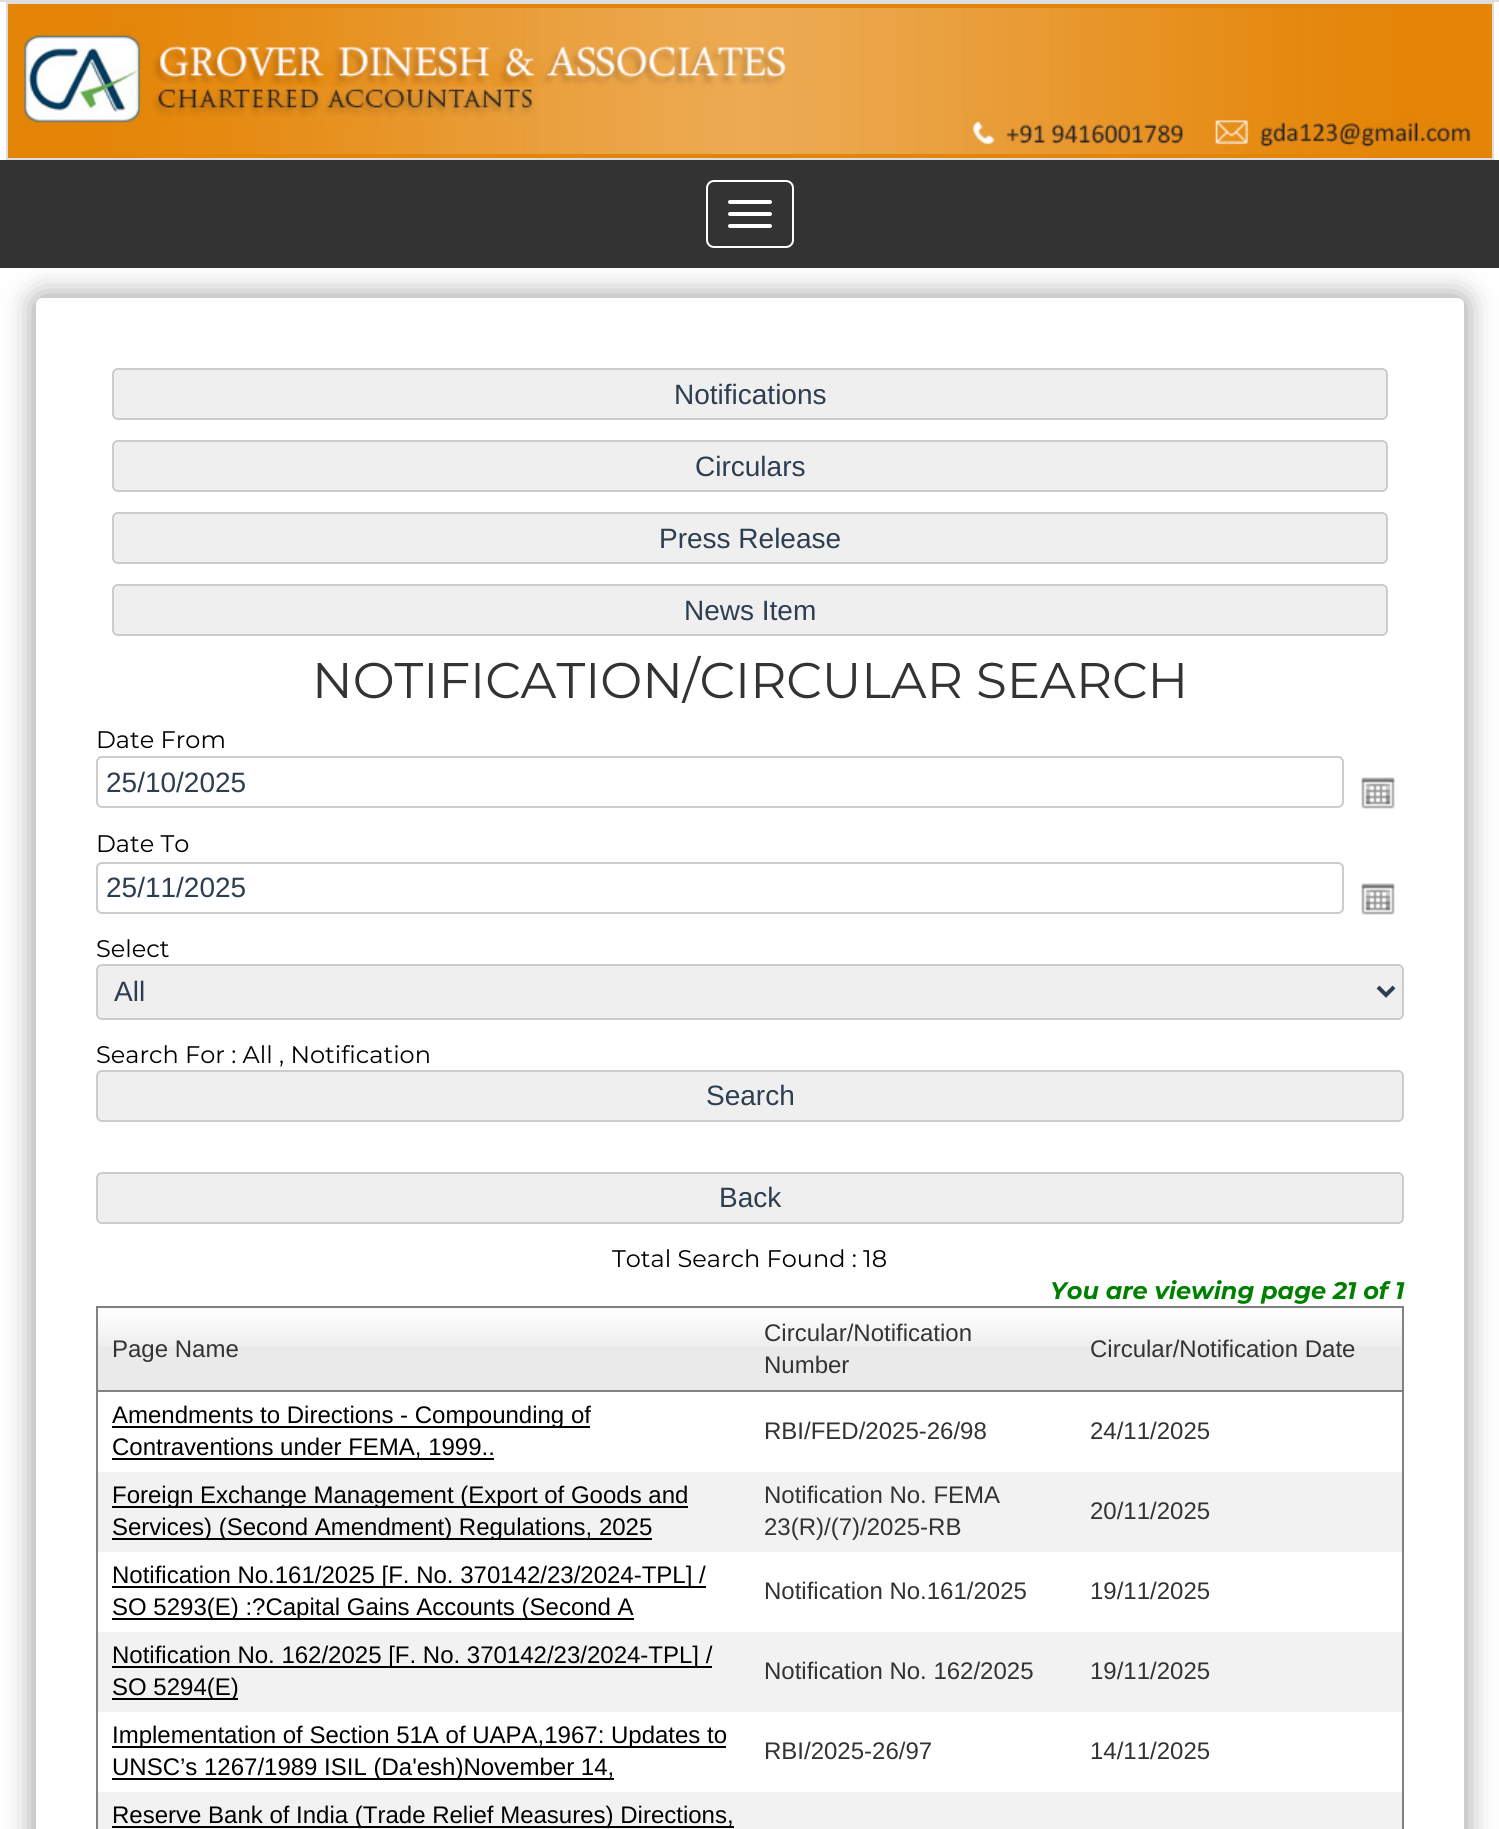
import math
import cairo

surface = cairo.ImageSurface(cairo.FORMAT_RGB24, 1499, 1829)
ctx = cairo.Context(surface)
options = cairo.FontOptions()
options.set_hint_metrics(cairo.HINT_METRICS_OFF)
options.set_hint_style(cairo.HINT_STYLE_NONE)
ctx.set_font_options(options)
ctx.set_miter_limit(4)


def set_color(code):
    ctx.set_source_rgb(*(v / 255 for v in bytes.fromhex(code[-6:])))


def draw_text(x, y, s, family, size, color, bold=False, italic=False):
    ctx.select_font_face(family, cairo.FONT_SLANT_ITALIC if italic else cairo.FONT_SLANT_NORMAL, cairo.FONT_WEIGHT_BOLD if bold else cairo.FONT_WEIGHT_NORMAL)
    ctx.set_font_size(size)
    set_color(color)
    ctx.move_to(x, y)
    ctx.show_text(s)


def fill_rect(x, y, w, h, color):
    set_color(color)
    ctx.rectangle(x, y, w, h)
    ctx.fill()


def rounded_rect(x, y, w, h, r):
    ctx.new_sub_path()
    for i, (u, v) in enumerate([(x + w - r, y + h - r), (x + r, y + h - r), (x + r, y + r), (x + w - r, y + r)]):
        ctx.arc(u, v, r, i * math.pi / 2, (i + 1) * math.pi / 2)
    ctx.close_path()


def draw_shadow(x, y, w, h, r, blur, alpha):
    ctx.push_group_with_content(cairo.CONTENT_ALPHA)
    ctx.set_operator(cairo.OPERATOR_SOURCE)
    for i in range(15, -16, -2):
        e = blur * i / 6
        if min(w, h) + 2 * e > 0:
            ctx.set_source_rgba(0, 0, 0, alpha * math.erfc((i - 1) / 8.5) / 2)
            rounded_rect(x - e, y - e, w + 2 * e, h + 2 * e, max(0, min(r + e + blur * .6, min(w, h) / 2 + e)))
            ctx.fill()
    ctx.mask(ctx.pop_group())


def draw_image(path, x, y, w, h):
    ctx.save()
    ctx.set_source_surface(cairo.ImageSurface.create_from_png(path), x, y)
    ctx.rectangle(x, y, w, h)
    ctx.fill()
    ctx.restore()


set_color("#ffffff")
ctx.paint()
ctx.rectangle(-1, 1, 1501, 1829)
set_color("#dddddd")
ctx.stroke()
fill_rect(6, 2, 1488, 2, "#dddddd")
fill_rect(1492, 2, 2, 158, "#dddddd")
fill_rect(6, 158, 1488, 2, "#dddddd")
fill_rect(6, 2, 2, 158, "#dddddd")
fill_rect(8, 4, 1484, 154, "#e48507")
draw_image("assets/img1.png", 24, 8, 1456, 146)
set_color("#000000")
draw_shadow(34, 296, 1432, 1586, 8, 15, 0.4)
fill_rect(0, 160, 1499, 108, "#333333")
rounded_rect(707, 181, 86, 66, 7)
set_color("#ffffff")
ctx.stroke()
rounded_rect(728, 200, 44, 4, 2)
ctx.fill()
rounded_rect(728, 212, 44, 4, 2)
ctx.fill()
rounded_rect(728, 224, 44, 4, 2)
ctx.fill()
rounded_rect(36, 298, 1428, 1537, 6)
ctx.fill()
set_color("#efefef")
rounded_rect(113, 369, 1274, 50, 5)
ctx.fill_preserve()
set_color("#cccccc")
ctx.stroke()
draw_text(674, 404, "Notifications", "Liberation Sans", 28, "#2c3e50")
set_color("#efefef")
rounded_rect(113, 441, 1274, 50, 5)
ctx.fill_preserve()
set_color("#cccccc")
ctx.stroke()
draw_text(695, 476, "Circulars", "Liberation Sans", 28, "#2c3e50")
set_color("#efefef")
rounded_rect(113, 513, 1274, 50, 5)
ctx.fill_preserve()
set_color("#cccccc")
ctx.stroke()
draw_text(659, 548, "Press Release", "Liberation Sans", 28, "#2c3e50")
set_color("#efefef")
rounded_rect(113, 585, 1274, 50, 5)
ctx.fill_preserve()
set_color("#cccccc")
ctx.stroke()
draw_text(684, 620, "News Item", "Liberation Sans", 28, "#2c3e50")
draw_text(312, 698, "NOTIFICATION/CIRCULAR SEARCH", "Montserrat", 50, "#333333")
draw_text(96, 748, "Date From", "Montserrat", 24, "#000000")
rounded_rect(97, 757, 1246, 50, 5)
set_color("#cccccc")
ctx.stroke()
draw_text(106, 792, "25/10/2025", "Liberation Sans", 28, "#2c3e50")
draw_image("assets/img2.png", 1361, 777, 34, 32)
draw_text(96, 852, "Date To", "Montserrat", 24, "#000000")
rounded_rect(97, 863, 1246, 50, 5)
set_color("#cccccc")
ctx.stroke()
draw_text(106, 897, "25/11/2025", "Liberation Sans", 28, "#2c3e50")
draw_image("assets/img2.png", 1361, 883, 34, 32)
draw_text(96, 957, "Select", "Montserrat", 24, "#000000")
set_color("#efefef")
rounded_rect(97, 965, 1306, 54, 5)
ctx.fill_preserve()
set_color("#cccccc")
ctx.stroke()
ctx.new_path()
ctx.move_to(1378, 987)
ctx.line_to(1386, 995)
ctx.line_to(1394, 987)
set_color("#2c3e50")
ctx.set_line_width(4)
ctx.stroke()
draw_text(114, 1001, "All", "Liberation Sans", 28, "#2c3e50")
draw_text(96, 1063, "Search For : All , Notification", "Montserrat", 24, "#000000")
set_color("#efefef")
rounded_rect(97, 1071, 1306, 50, 5)
ctx.fill_preserve()
set_color("#cccccc")
ctx.set_line_width(2)
ctx.stroke()
draw_text(706, 1105, "Search", "Liberation Sans", 28, "#2c3e50")
set_color("#efefef")
rounded_rect(97, 1173, 1306, 50, 5)
ctx.fill_preserve()
set_color("#cccccc")
ctx.stroke()
draw_text(719, 1207, "Back", "Liberation Sans", 28, "#2c3e50")
draw_text(612, 1267, "Total Search Found : 18", "Montserrat", 24, "#000000")
draw_text(1050, 1299, "You are viewing page 21 of 1", "Montserrat", 24, "#008000", bold=True, italic=True)
ctx.rectangle(97, 1307, 1306, 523)
set_color("#828282")
ctx.stroke()
fill_rect(98, 1308, 1304, 82, "#eaeaea")
draw_image("assets/img3.png", 98, 1308, 652, 38)
fill_rect(98, 1390, 1304, 2, "#828282")
draw_text(112, 1357, "Page Name", "Liberation Sans", 24, "#333333")
draw_image("assets/img4.png", 750, 1308, 326, 38)
draw_text(764, 1341, "Circular/Notification", "Liberation Sans", 24, "#333333")
draw_text(764, 1373, "Number", "Liberation Sans", 24, "#333333")
draw_image("assets/img4.png", 1076, 1308, 326, 38)
draw_text(1090, 1357, "Circular/Notification Date", "Liberation Sans", 24, "#333333")
fill_rect(112, 1426, 478, 2, "#000000")
draw_text(112, 1423, "Amendments to Directions - Compounding of", "Liberation Sans", 24, "#000000")
fill_rect(112, 1458, 382, 2, "#000000")
draw_text(112, 1455, "Contraventions under FEMA, 1999..", "Liberation Sans", 24, "#000000")
draw_text(764, 1439, "RBI/FED/2025-26/98", "Liberation Sans", 24, "#333333")
draw_text(1090, 1439, "24/11/2025", "Liberation Sans", 24, "#333333")
fill_rect(98, 1472, 1304, 80, "#f2f2f2")
fill_rect(112, 1506, 576, 2, "#000000")
draw_text(112, 1503, "Foreign Exchange Management (Export of Goods and", "Liberation Sans", 24, "#000000")
fill_rect(112, 1538, 540, 2, "#000000")
draw_text(112, 1535, "Services) (Second Amendment) Regulations, 2025", "Liberation Sans", 24, "#000000")
draw_text(764, 1503, "Notification No. FEMA", "Liberation Sans", 24, "#333333")
draw_text(764, 1535, "23(R)/(7)/2025-RB", "Liberation Sans", 24, "#333333")
draw_text(1090, 1519, "20/11/2025", "Liberation Sans", 24, "#333333")
fill_rect(112, 1586, 594, 2, "#000000")
draw_text(112, 1583, "Notification No.161/2025 [F. No. 370142/23/2024-TPL] /", "Liberation Sans", 24, "#000000")
fill_rect(112, 1618, 522, 2, "#000000")
draw_text(112, 1615, "SO 5293(E) :?Capital Gains Accounts (Second A", "Liberation Sans", 24, "#000000")
draw_text(764, 1599, "Notification No.161/2025", "Liberation Sans", 24, "#333333")
draw_text(1090, 1599, "19/11/2025", "Liberation Sans", 24, "#333333")
fill_rect(98, 1632, 1304, 80, "#f2f2f2")
fill_rect(112, 1666, 600, 2, "#000000")
draw_text(112, 1663, "Notification No. 162/2025 [F. No. 370142/23/2024-TPL] /", "Liberation Sans", 24, "#000000")
fill_rect(112, 1698, 126, 2, "#000000")
draw_text(112, 1695, "SO 5294(E)", "Liberation Sans", 24, "#000000")
draw_text(764, 1679, "Notification No. 162/2025", "Liberation Sans", 24, "#333333")
draw_text(1090, 1679, "19/11/2025", "Liberation Sans", 24, "#333333")
fill_rect(112, 1746, 614, 2, "#000000")
draw_text(112, 1743, "Implementation of Section 51A of UAPA,1967: Updates to", "Liberation Sans", 24, "#000000")
fill_rect(112, 1778, 502, 2, "#000000")
draw_text(112, 1775, "UNSC’s 1267/1989 ISIL (Da'esh)November 14,", "Liberation Sans", 24, "#000000")
draw_text(764, 1759, "RBI/2025-26/97", "Liberation Sans", 24, "#333333")
draw_text(1090, 1759, "14/11/2025", "Liberation Sans", 24, "#333333")
fill_rect(98, 1792, 1304, 37, "#f2f2f2")
fill_rect(112, 1826, 622, 2, "#000000")
draw_text(112, 1823, "Reserve Bank of India (Trade Relief Measures) Directions,", "Liberation Sans", 24, "#000000")
surface.write_to_png("output.png")
